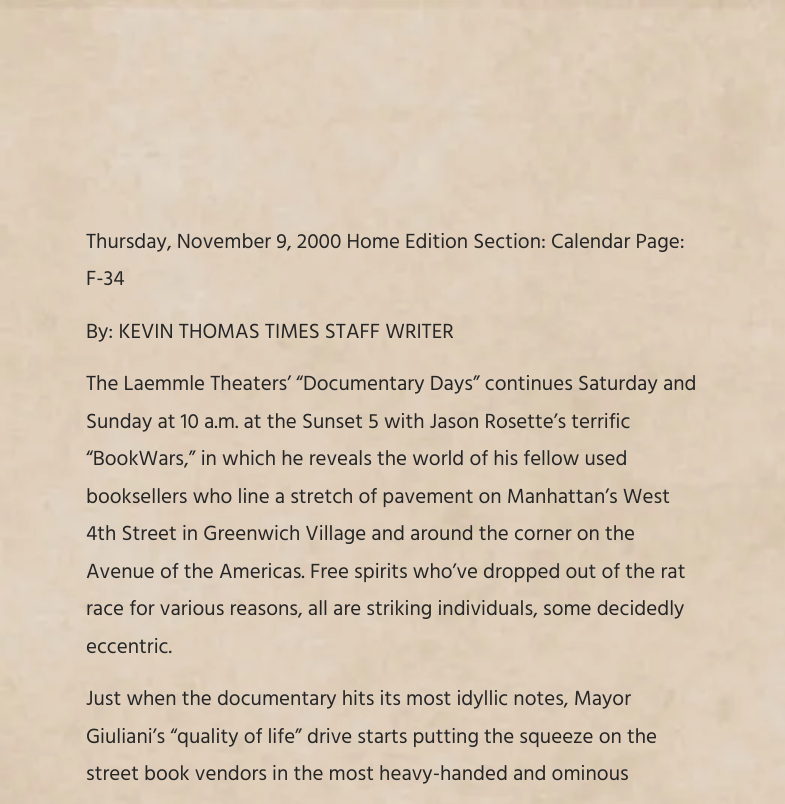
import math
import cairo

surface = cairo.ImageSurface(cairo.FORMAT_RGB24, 785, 804)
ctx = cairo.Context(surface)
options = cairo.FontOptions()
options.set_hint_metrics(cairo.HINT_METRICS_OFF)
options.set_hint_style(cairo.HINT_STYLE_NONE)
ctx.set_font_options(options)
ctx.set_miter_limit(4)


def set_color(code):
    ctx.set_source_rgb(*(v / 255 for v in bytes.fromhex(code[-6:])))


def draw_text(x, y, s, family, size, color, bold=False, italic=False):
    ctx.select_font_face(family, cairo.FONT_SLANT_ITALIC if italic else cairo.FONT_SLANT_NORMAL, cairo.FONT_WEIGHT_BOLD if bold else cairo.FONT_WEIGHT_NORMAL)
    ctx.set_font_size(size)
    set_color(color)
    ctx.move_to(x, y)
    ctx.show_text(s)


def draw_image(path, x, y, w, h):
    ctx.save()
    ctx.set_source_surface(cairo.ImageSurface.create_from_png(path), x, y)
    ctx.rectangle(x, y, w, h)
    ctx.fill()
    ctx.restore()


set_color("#ffffff")
ctx.paint()
draw_image("assets/img1.png", 0, 0, 785, 804)
draw_text(86, 248, "Thursday, November 9, 2000 Home Edition Section: Calendar Page:", "Hind", 21, "#262626")
draw_text(86, 285, "F-34", "Hind", 21, "#262626")
draw_text(86, 338, "By: KEVIN THOMAS TIMES STAFF WRITER", "Hind", 21, "#262626")
draw_text(86, 390, "The Laemmle Theaters’ “Documentary Days” continues Saturday and", "Hind", 21, "#262626")
draw_text(86, 428, "Sunday at 10 a.m. at the Sunset 5 with Jason Rosette’s terrific", "Hind", 21, "#262626")
draw_text(86, 465, "“BookWars,” in which he reveals the world of his fellow used", "Hind", 21, "#262626")
draw_text(86, 503, "booksellers who line a stretch of pavement on Manhattan’s West", "Hind", 21, "#262626")
draw_text(86, 540, "4th Street in Greenwich Village and around the corner on the", "Hind", 21, "#262626")
draw_text(86, 578, "Avenue of the Americas. Free spirits who’ve dropped out of the rat", "Hind", 21, "#262626")
draw_text(86, 615, "race for various reasons, all are striking individuals, some decidedly", "Hind", 21, "#262626")
draw_text(86, 653, "eccentric.", "Hind", 21, "#262626")
draw_text(86, 705, "Just when the documentary hits its most idyllic notes, Mayor", "Hind", 21, "#262626")
draw_text(86, 743, "Giuliani’s “quality of life” drive starts putting the squeeze on the", "Hind", 21, "#262626")
draw_text(86, 780, "street book vendors in the most heavy-handed and ominous", "Hind", 21, "#262626")
surface.write_to_png("output.png")
